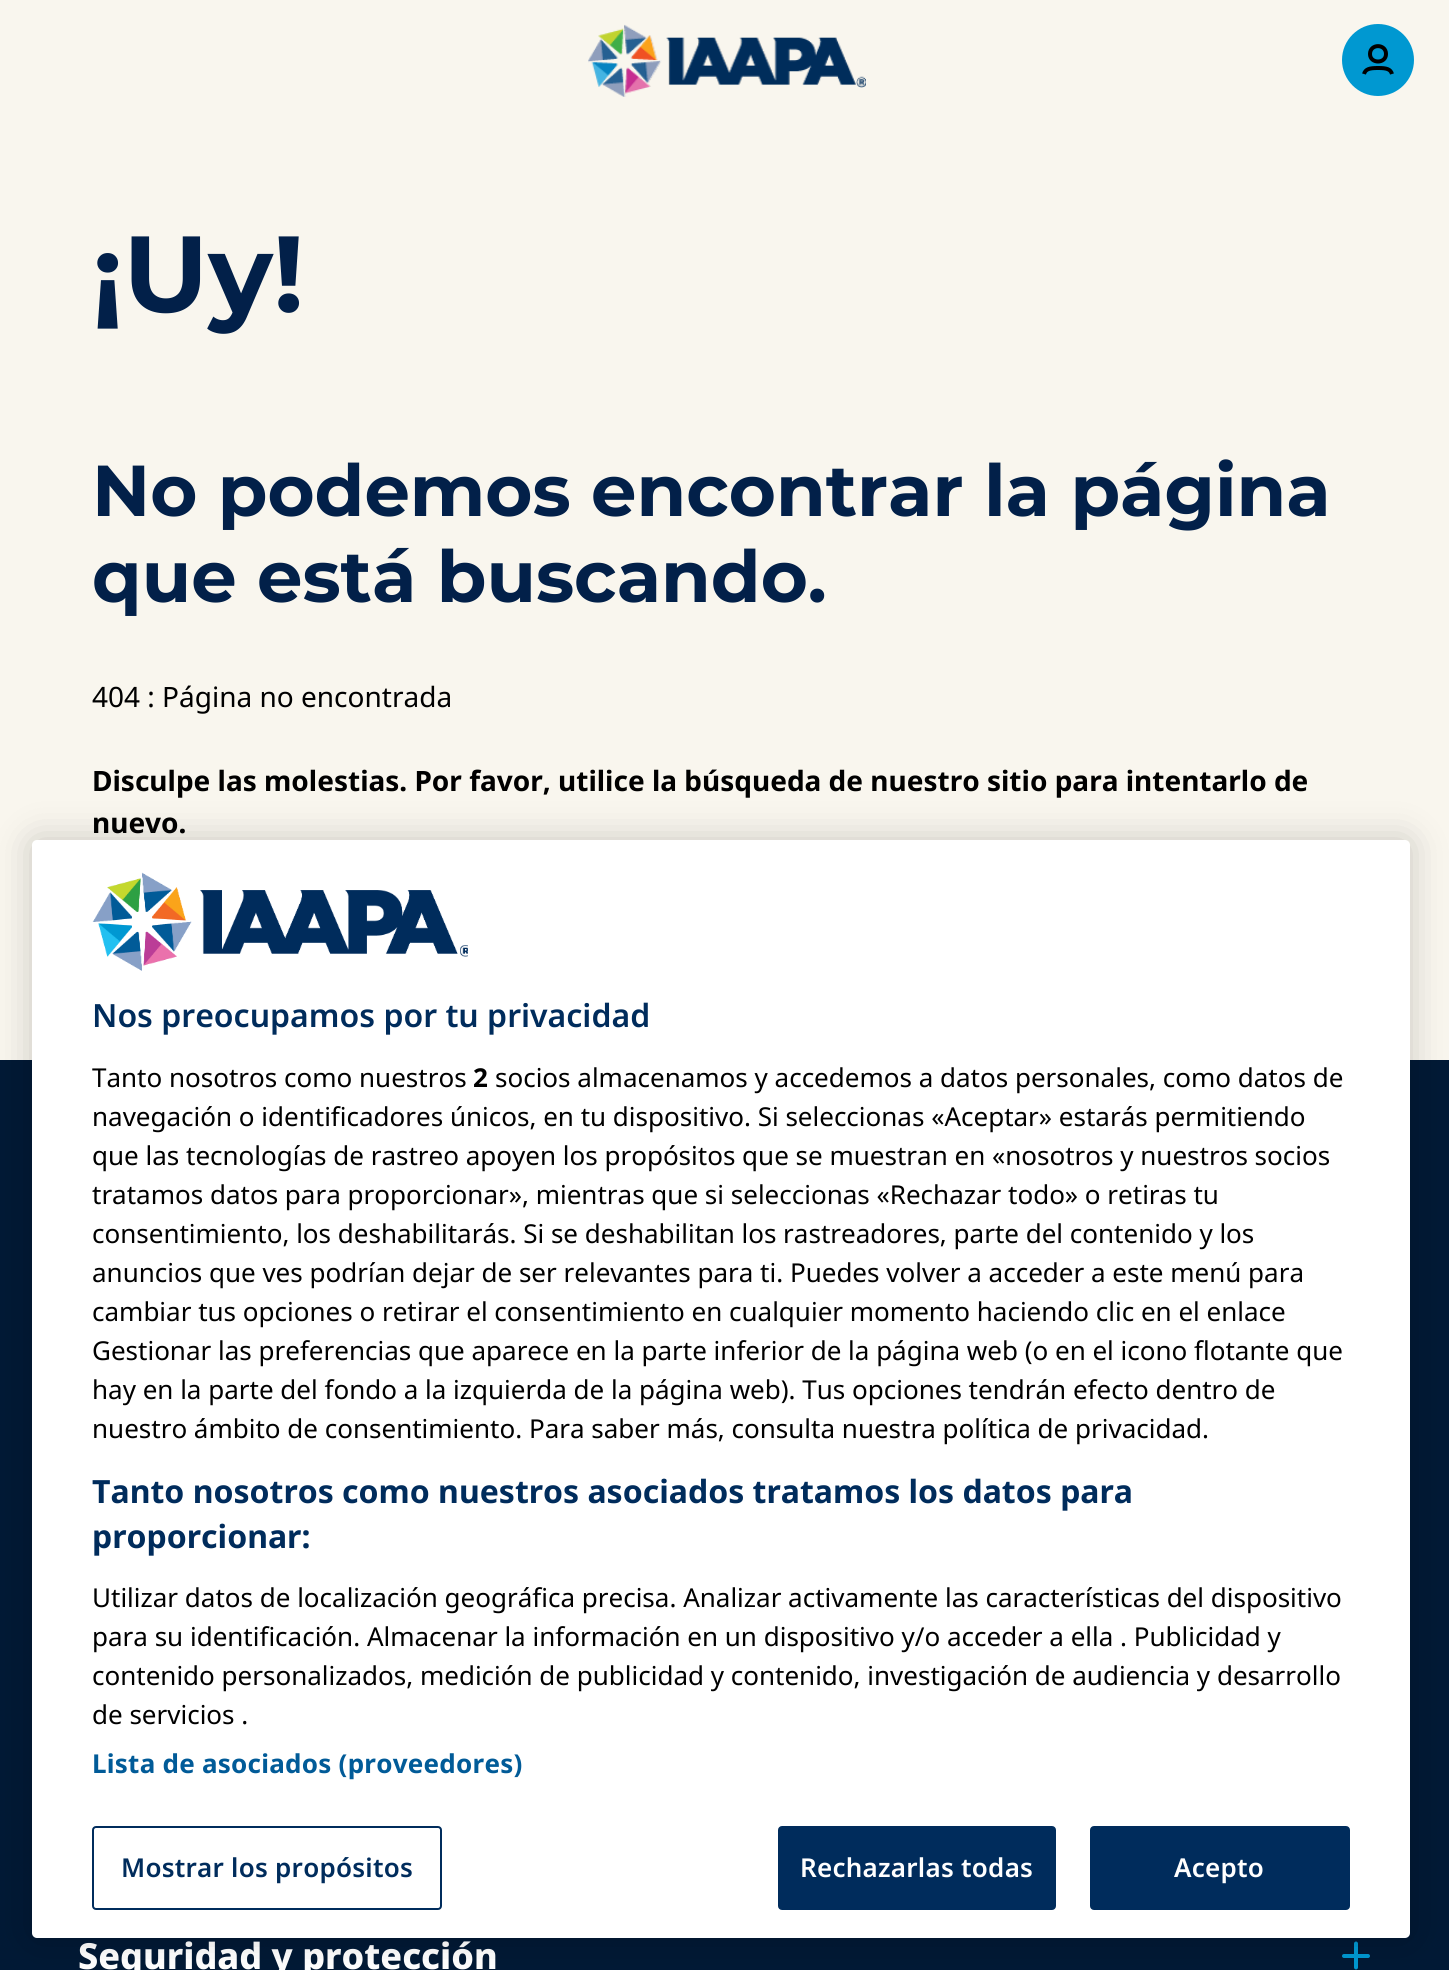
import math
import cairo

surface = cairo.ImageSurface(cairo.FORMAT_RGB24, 1449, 1970)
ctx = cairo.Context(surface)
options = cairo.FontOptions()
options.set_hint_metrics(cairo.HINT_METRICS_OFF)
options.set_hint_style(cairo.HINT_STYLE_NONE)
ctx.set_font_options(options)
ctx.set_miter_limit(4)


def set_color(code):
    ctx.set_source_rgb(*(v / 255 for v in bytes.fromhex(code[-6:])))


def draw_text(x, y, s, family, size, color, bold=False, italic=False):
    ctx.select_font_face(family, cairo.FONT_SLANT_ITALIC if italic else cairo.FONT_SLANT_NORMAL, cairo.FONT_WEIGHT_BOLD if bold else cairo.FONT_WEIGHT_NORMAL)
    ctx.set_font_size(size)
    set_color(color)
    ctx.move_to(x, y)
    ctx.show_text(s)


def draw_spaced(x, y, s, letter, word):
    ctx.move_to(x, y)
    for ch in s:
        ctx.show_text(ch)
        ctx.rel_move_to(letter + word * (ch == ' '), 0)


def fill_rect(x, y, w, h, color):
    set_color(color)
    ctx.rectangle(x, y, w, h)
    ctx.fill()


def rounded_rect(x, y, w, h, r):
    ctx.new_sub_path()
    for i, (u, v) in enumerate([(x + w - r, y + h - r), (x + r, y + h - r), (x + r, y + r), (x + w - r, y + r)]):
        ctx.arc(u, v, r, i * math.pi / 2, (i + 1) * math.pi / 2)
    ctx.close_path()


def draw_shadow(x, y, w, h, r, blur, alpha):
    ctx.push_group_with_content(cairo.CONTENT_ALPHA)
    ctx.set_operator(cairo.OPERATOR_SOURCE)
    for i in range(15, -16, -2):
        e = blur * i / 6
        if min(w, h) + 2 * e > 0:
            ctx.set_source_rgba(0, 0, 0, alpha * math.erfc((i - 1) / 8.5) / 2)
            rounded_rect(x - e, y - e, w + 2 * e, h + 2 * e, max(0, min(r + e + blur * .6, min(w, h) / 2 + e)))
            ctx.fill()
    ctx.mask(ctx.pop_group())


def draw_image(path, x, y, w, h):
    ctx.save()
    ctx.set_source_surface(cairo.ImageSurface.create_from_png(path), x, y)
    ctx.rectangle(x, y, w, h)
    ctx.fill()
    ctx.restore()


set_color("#f9f6ee")
ctx.paint()
draw_image("assets/img1.png", 588, 24, 278, 73)
set_color("#0098d1")
ctx.arc(1378, 60, 36, 0, 2 * math.pi)
ctx.fill()
ctx.new_path()
ctx.move_to(1364, 74)
ctx.curve_to(1365.5, 69, 1369.5, 68, 1378, 68)
ctx.curve_to(1386.5, 68, 1390.5, 69, 1392, 74)
ctx.move_to(1386, 54)
ctx.curve_to(1386, 64, 1370, 64, 1370, 54)
ctx.curve_to(1370, 43.5, 1386, 43.5, 1386, 54)
ctx.close_path()
set_color("#000000")
ctx.set_line_width(4)
ctx.stroke()
draw_text(92, 312, "¡Uy!", "Montserrat", 108, "#022049", bold=True)
draw_text(92, 516, "No podemos encontrar la página", "Montserrat", 72, "#022049", bold=True)
draw_text(92, 602, "que está buscando.", "Montserrat", 72, "#022049", bold=True)
draw_text(92, 707, "404 : Página no encontrada", "Noto Sans", 28, "#000000")
draw_text(92, 791, "Disculpe las molestias. Por favor, utilice la búsqueda de nuestro sitio para intentarlo de", "Noto Sans", 28, "#000000", bold=True)
draw_text(92, 833, "nuevo.", "Noto Sans", 28, "#000000", bold=True)
fill_rect(0, 1060, 1449, 910, "#011935")
draw_text(78, 1969, "Seguridad y protección", "Noto Sans ExtraBold", 36, "#ffffff")
set_color("#0098d1")
rounded_rect(1342, 1954, 28, 4, 2)
ctx.fill()
ctx.new_path()
ctx.move_to(1358, 1943.5)
ctx.line_to(1358, 1967.5)
ctx.curve_to(1358, 1968.5, 1357, 1969.5, 1356, 1969.5)
ctx.curve_to(1355, 1969.5, 1354, 1968.5, 1354, 1967.5)
ctx.line_to(1354, 1943.5)
ctx.curve_to(1354, 1942.5, 1355, 1941.5, 1356, 1941.5)
ctx.curve_to(1357, 1941.5, 1358, 1942.5, 1358, 1943.5)
ctx.close_path()
ctx.fill()
set_color("#000000")
draw_shadow(32, 840, 1378, 1098, 5, 18, 0.2)
set_color("#ffffff")
rounded_rect(32, 840, 1378, 1098, 5)
ctx.fill()
draw_image("assets/img2.png", 92, 872, 376, 99)
draw_text(92, 1027, "Nos preocupamos por tu privacidad", "Noto Sans SemiBold", 32, "#002c5c")
draw_text(92, 1087, "Tanto nosotros como nuestros", "Noto Sans", 26, "#000000")
draw_text(473, 1087, "2", "Noto Sans", 26, "#000000", bold=True)
draw_text(495, 1087, "socios almacenamos y accedemos a datos personales, como datos de", "Noto Sans", 26, "#000000")
draw_text(92, 1126, "navegación o identificadores únicos, en tu dispositivo. Si seleccionas «Aceptar» estarás permitiendo", "Noto Sans", 26, "#000000")
draw_text(92, 1165, "que las tecnologías de rastreo apoyen los propósitos que se muestran en «nosotros y nuestros socios", "Noto Sans", 26, "#000000")
draw_text(92, 1204, "tratamos datos para proporcionar», mientras que si seleccionas «Rechazar todo» o retiras tu", "Noto Sans", 26, "#000000")
draw_text(92, 1243, "consentimiento, los deshabilitarás. Si se deshabilitan los rastreadores, parte del contenido y los", "Noto Sans", 26, "#000000")
draw_text(92, 1282, "anuncios que ves podrían dejar de ser relevantes para ti. Puedes volver a acceder a este menú para", "Noto Sans", 26, "#000000")
draw_text(92, 1321, "cambiar tus opciones o retirar el consentimiento en cualquier momento haciendo clic en el enlace", "Noto Sans", 26, "#000000")
draw_text(92, 1360, "Gestionar las preferencias que aparece en la parte inferior de la página web (o en el icono flotante que", "Noto Sans", 26, "#000000")
draw_text(92, 1399, "hay en la parte del fondo a la izquierda de la página web). Tus opciones tendrán efecto dentro de", "Noto Sans", 26, "#000000")
draw_text(92, 1438, "nuestro ámbito de consentimiento. Para saber más, consulta nuestra política de privacidad.", "Noto Sans", 26, "#000000")
draw_text(92, 1503, "Tanto nosotros como nuestros asociados tratamos los datos para", "Noto Sans", 32, "#002c5c", bold=True)
draw_text(92, 1548, "proporcionar:", "Noto Sans", 32, "#002c5c", bold=True)
draw_text(92, 1607, "Utilizar datos de localización geográfica precisa. Analizar activamente las características del dispositivo", "Noto Sans", 26, "#000000")
draw_text(92, 1646, "para su identificación. Almacenar la información en un dispositivo y/o acceder a ella . Publicidad y", "Noto Sans", 26, "#000000")
draw_text(92, 1685, "contenido personalizados, medición de publicidad y contenido, investigación de audiencia y desarrollo", "Noto Sans", 26, "#000000")
draw_text(92, 1724, "de servicios .", "Noto Sans", 26, "#000000")
ctx.select_font_face("Noto Sans", cairo.FONT_SLANT_NORMAL, cairo.FONT_WEIGHT_BOLD)
set_color("#015b98")
draw_spaced(92, 1773, "Lista de asociados (proveedores)", 0.25, 0)
rounded_rect(93, 1827, 348, 82, 3)
set_color("#002c5c")
ctx.set_line_width(2)
ctx.stroke()
ctx.select_font_face("Noto Sans SemiBold")
draw_spaced(121, 1877, "Mostrar los propósitos", 0.25, 0)
rounded_rect(779, 1827, 276, 82, 3)
ctx.fill_preserve()
ctx.stroke()
set_color("#ffffff")
draw_spaced(800, 1877, "Rechazarlas todas", 0.25, 0)
set_color("#002c5c")
rounded_rect(1091, 1827, 258, 82, 3)
ctx.fill_preserve()
ctx.stroke()
set_color("#ffffff")
draw_spaced(1174, 1877, "Acepto", 0.25, 0)
surface.write_to_png("output.png")
